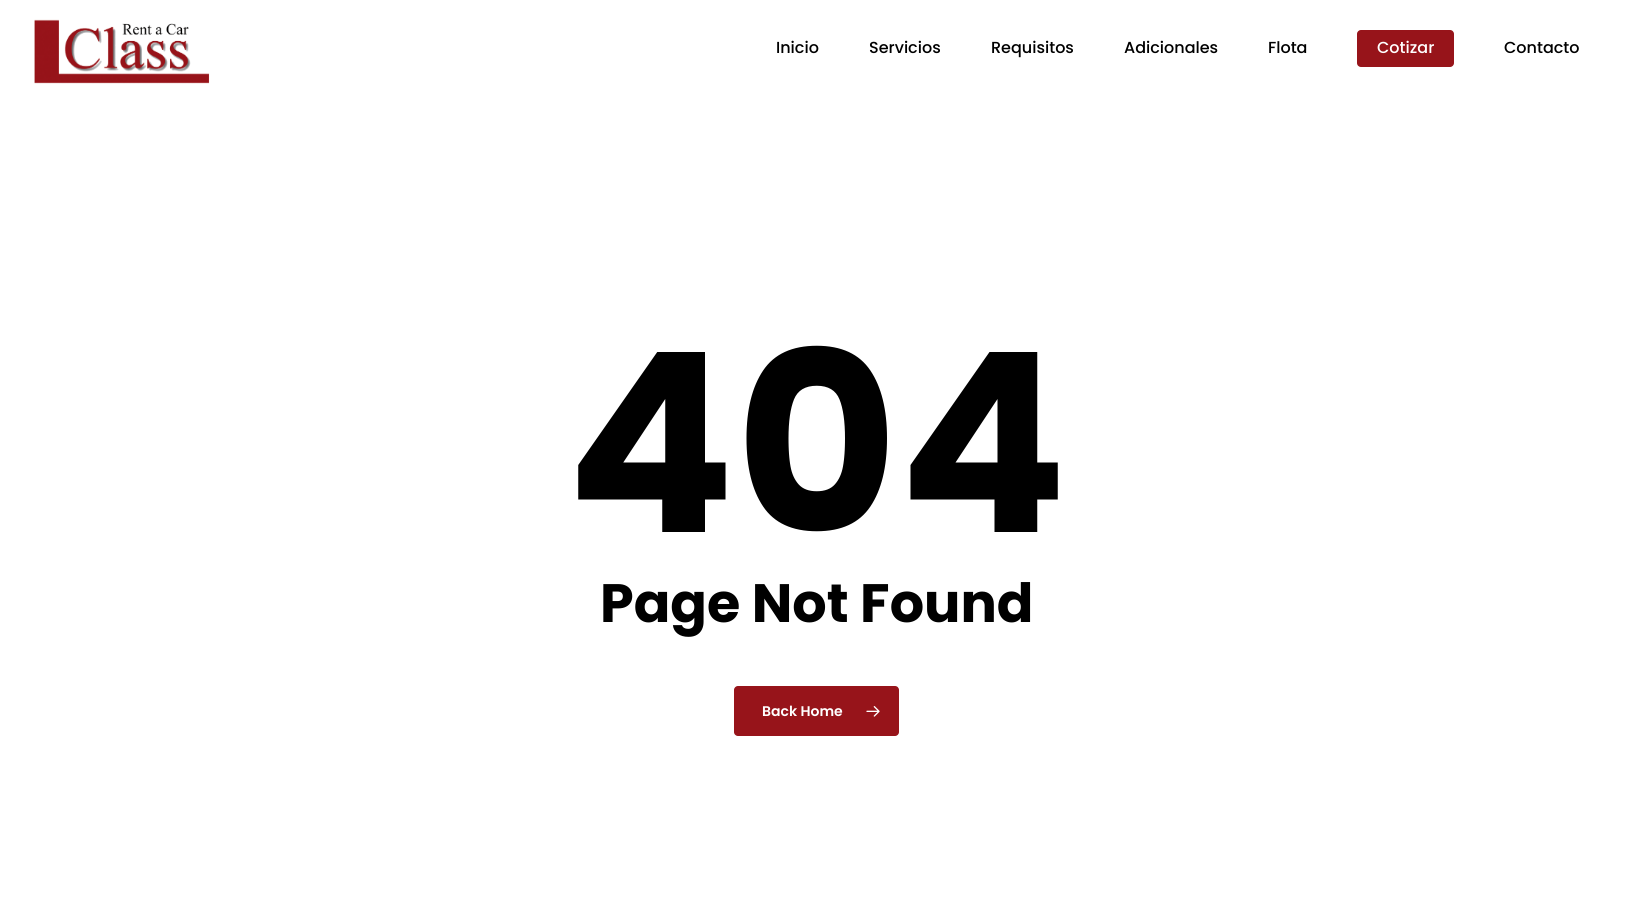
import math
import cairo

surface = cairo.ImageSurface(cairo.FORMAT_RGB24, 1633, 899)
ctx = cairo.Context(surface)
options = cairo.FontOptions()
options.set_hint_metrics(cairo.HINT_METRICS_OFF)
options.set_hint_style(cairo.HINT_STYLE_NONE)
ctx.set_font_options(options)
ctx.set_miter_limit(4)


def set_color(code):
    ctx.set_source_rgb(*(v / 255 for v in bytes.fromhex(code[-6:])))


def draw_text(x, y, s, family, size, color, bold=False, italic=False):
    ctx.select_font_face(family, cairo.FONT_SLANT_ITALIC if italic else cairo.FONT_SLANT_NORMAL, cairo.FONT_WEIGHT_BOLD if bold else cairo.FONT_WEIGHT_NORMAL)
    ctx.set_font_size(size)
    set_color(color)
    ctx.move_to(x, y)
    ctx.show_text(s)


def rounded_rect(x, y, w, h, r):
    ctx.new_sub_path()
    for i, (u, v) in enumerate([(x + w - r, y + h - r), (x + r, y + h - r), (x + r, y + r), (x + w - r, y + r)]):
        ctx.arc(u, v, r, i * math.pi / 2, (i + 1) * math.pi / 2)
    ctx.close_path()


def draw_image(path, x, y, w, h):
    ctx.save()
    ctx.set_source_surface(cairo.ImageSurface.create_from_png(path), x, y)
    ctx.rectangle(x, y, w, h)
    ctx.fill()
    ctx.restore()


set_color("#ffffff")
ctx.paint()
draw_image("assets/img1.png", 34, 19, 176, 65)
draw_text(776, 53, "Inicio", "Poppins Medium", 16, "#000000")
draw_text(869, 53, "Servicios", "Poppins Medium", 16, "#000000")
draw_text(991, 53, "Requisitos", "Poppins Medium", 16, "#000000")
draw_text(1124, 53, "Adicionales", "Poppins Medium", 16, "#000000")
draw_text(1268, 53, "Flota", "Poppins Medium", 16, "#000000")
set_color("#97141a")
rounded_rect(1357, 30, 97, 37, 4)
ctx.fill()
draw_text(1377, 53, "Cotizar", "Poppins Medium", 16, "#ffffff")
draw_text(1504, 53, "Contacto", "Poppins Medium", 16, "#000000")
draw_text(566, 532, "404", "Poppins", 250, "#000000", bold=True)
draw_text(600, 622, "Page Not Found", "Poppins", 54, "#000000", bold=True)
set_color("#97141a")
rounded_rect(734, 686, 165, 50, 4)
ctx.fill()
draw_text(762, 716, "Back Home", "Poppins SemiBold", 14, "#ffffff")
draw_image("assets/img2.png", 866, 706, 14, 11)
surface.write_to_png("output.png")
